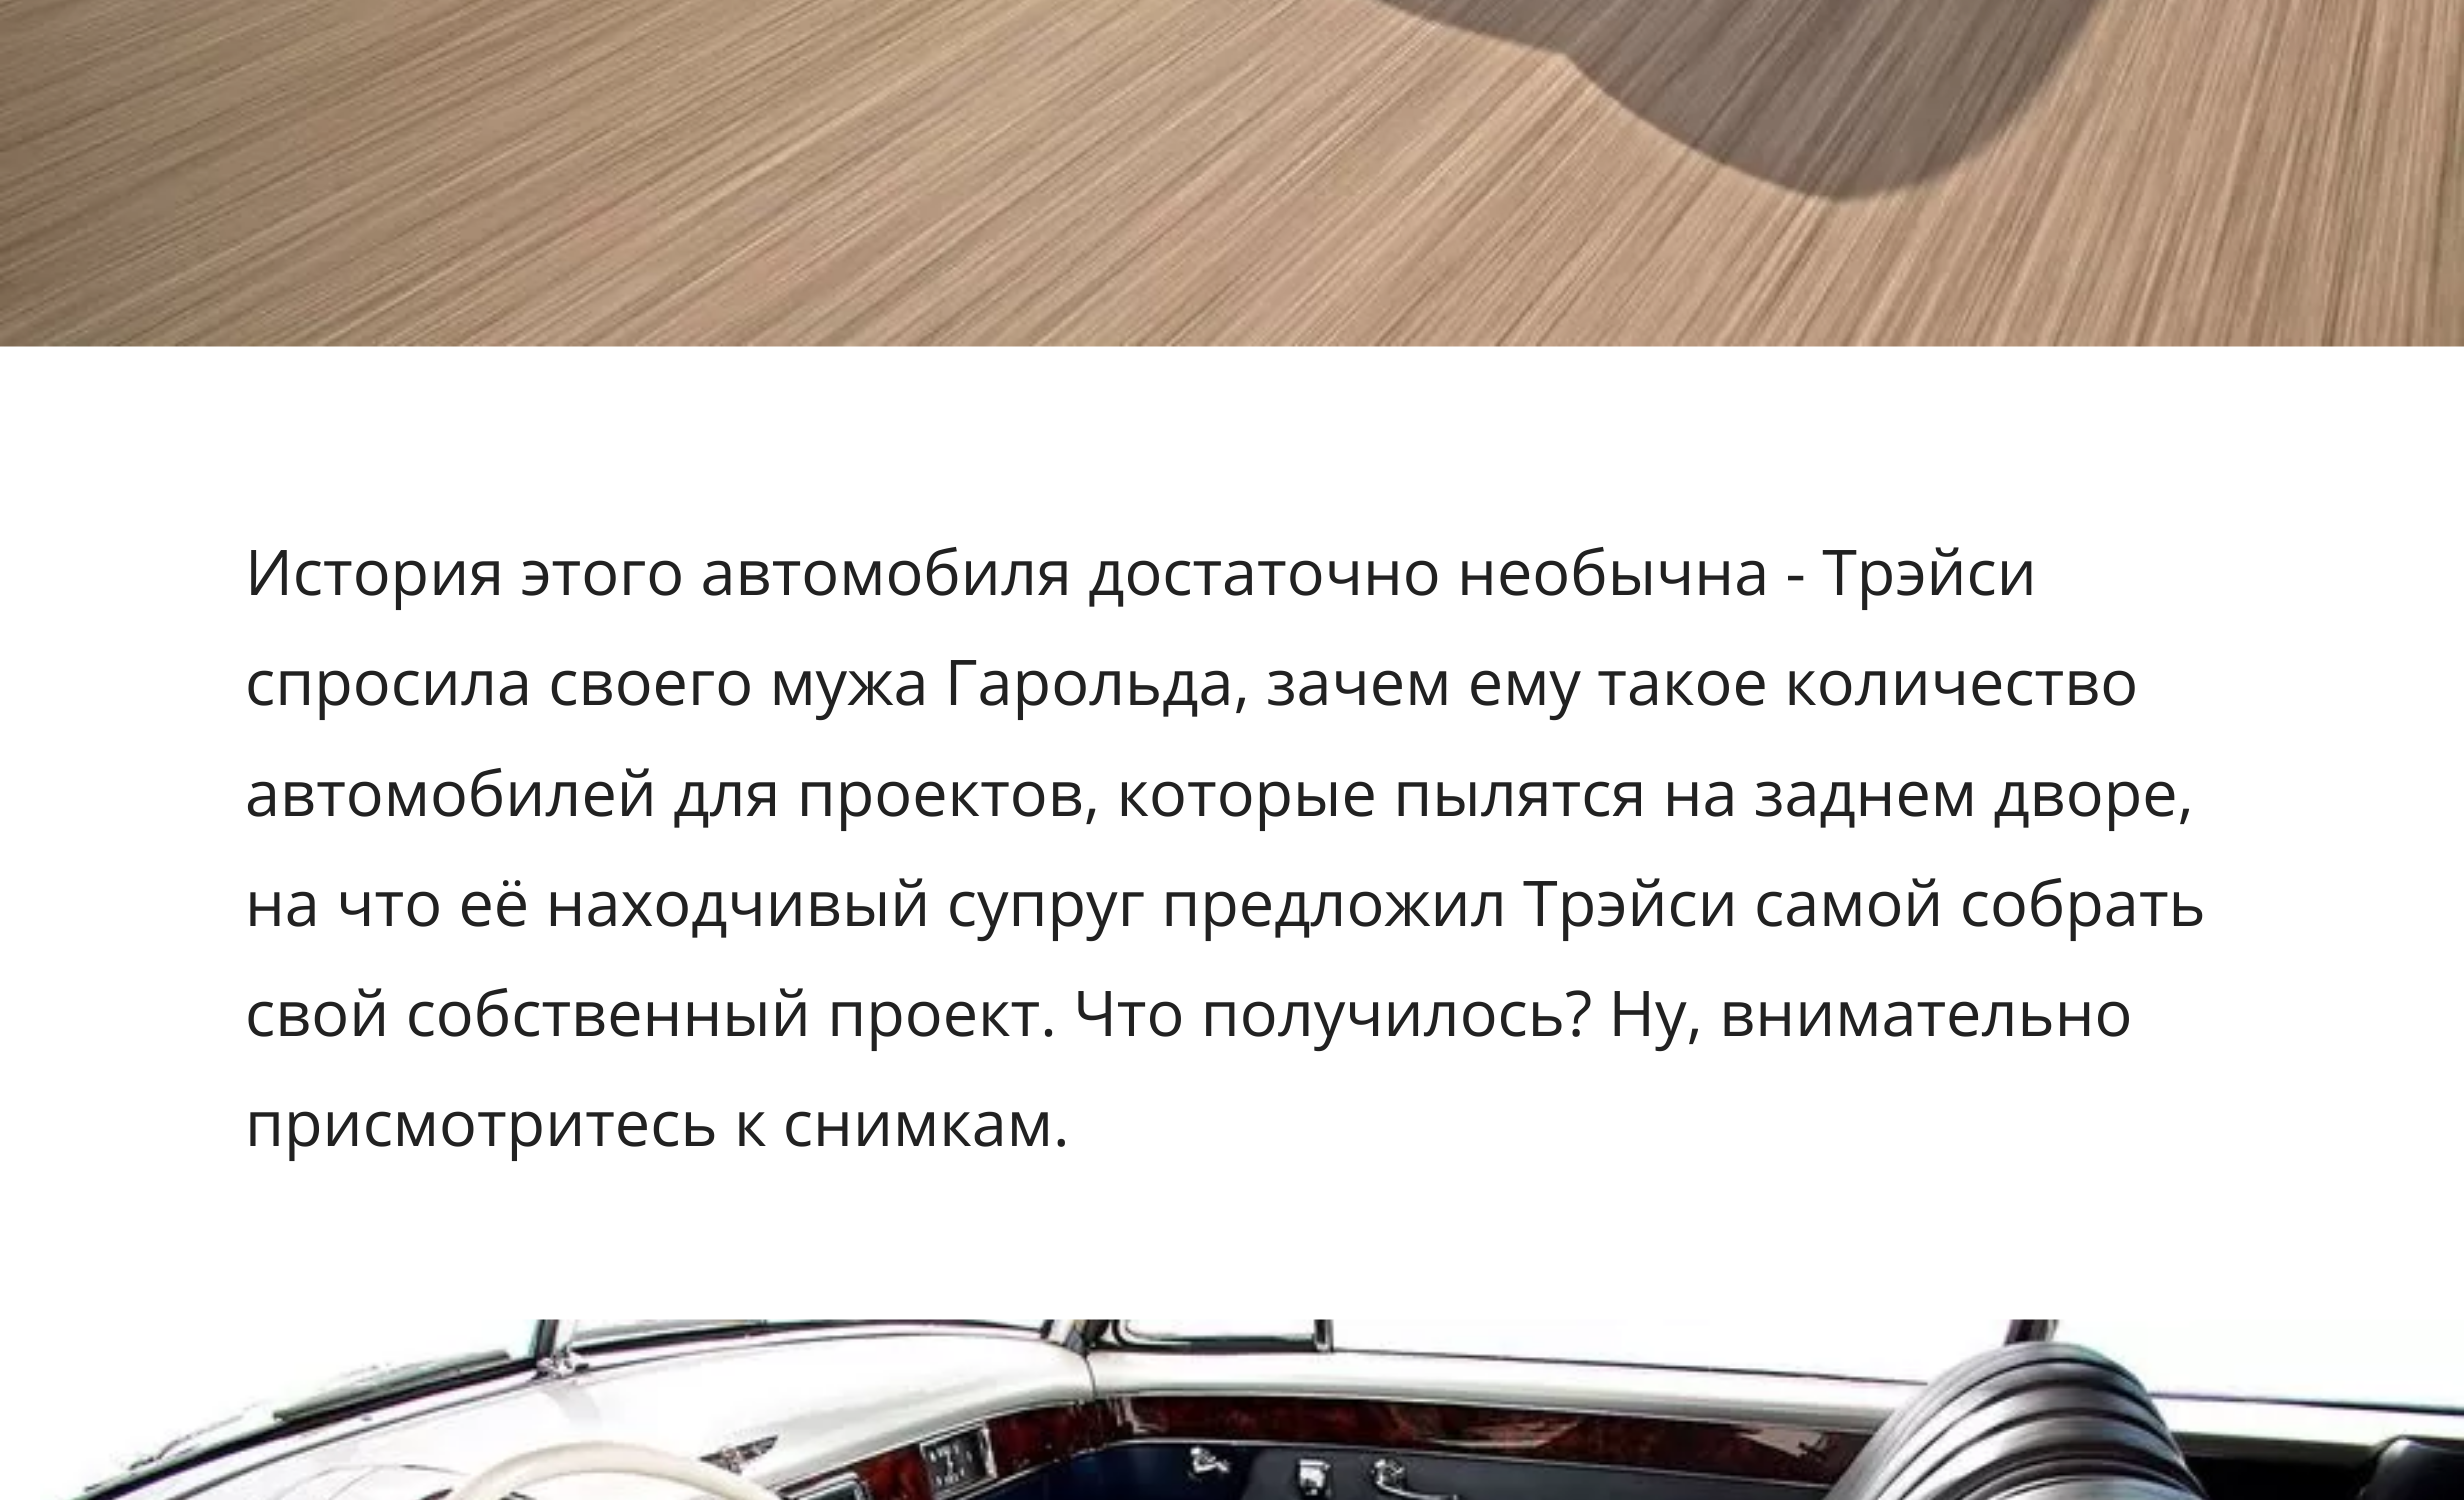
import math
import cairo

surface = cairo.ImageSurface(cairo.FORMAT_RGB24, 2464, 1500)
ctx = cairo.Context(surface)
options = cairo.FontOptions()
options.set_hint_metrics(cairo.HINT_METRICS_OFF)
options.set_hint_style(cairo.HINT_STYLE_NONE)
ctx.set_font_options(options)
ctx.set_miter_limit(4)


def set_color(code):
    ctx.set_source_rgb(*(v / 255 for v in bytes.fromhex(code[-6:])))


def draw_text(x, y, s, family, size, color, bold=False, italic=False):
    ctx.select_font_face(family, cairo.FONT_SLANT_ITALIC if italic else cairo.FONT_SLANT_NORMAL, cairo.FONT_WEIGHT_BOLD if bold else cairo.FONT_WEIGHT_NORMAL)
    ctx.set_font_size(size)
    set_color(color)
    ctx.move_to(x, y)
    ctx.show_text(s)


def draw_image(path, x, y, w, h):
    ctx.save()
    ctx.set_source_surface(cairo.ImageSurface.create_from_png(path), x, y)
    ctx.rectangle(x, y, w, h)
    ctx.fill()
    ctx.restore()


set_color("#ffffff")
ctx.paint()
draw_image("assets/img1.png", 0, 0, 2464, 347)
draw_text(245, 595, "История этого автомобиля достаточно необычна - Трэйси", "Open Sans", 63, "#212121")
draw_text(245, 705, "спросила своего мужа Гарольда, зачем ему такое количество", "Open Sans", 63, "#212121")
draw_text(245, 816, "автомобилей для проектов, которые пылятся на заднем дворе,", "Open Sans", 63, "#212121")
draw_text(245, 926, "на что её находчивый супруг предложил Трэйси самой собрать", "Open Sans", 63, "#212121")
draw_text(245, 1036, "свой собственный проект. Что получилось? Ну, внимательно", "Open Sans", 63, "#212121")
draw_text(245, 1146, "присмотритесь к снимкам.", "Open Sans", 63, "#212121")
draw_image("assets/img2.png", 40, 1319, 2424, 181)
surface.write_to_png("output.png")
